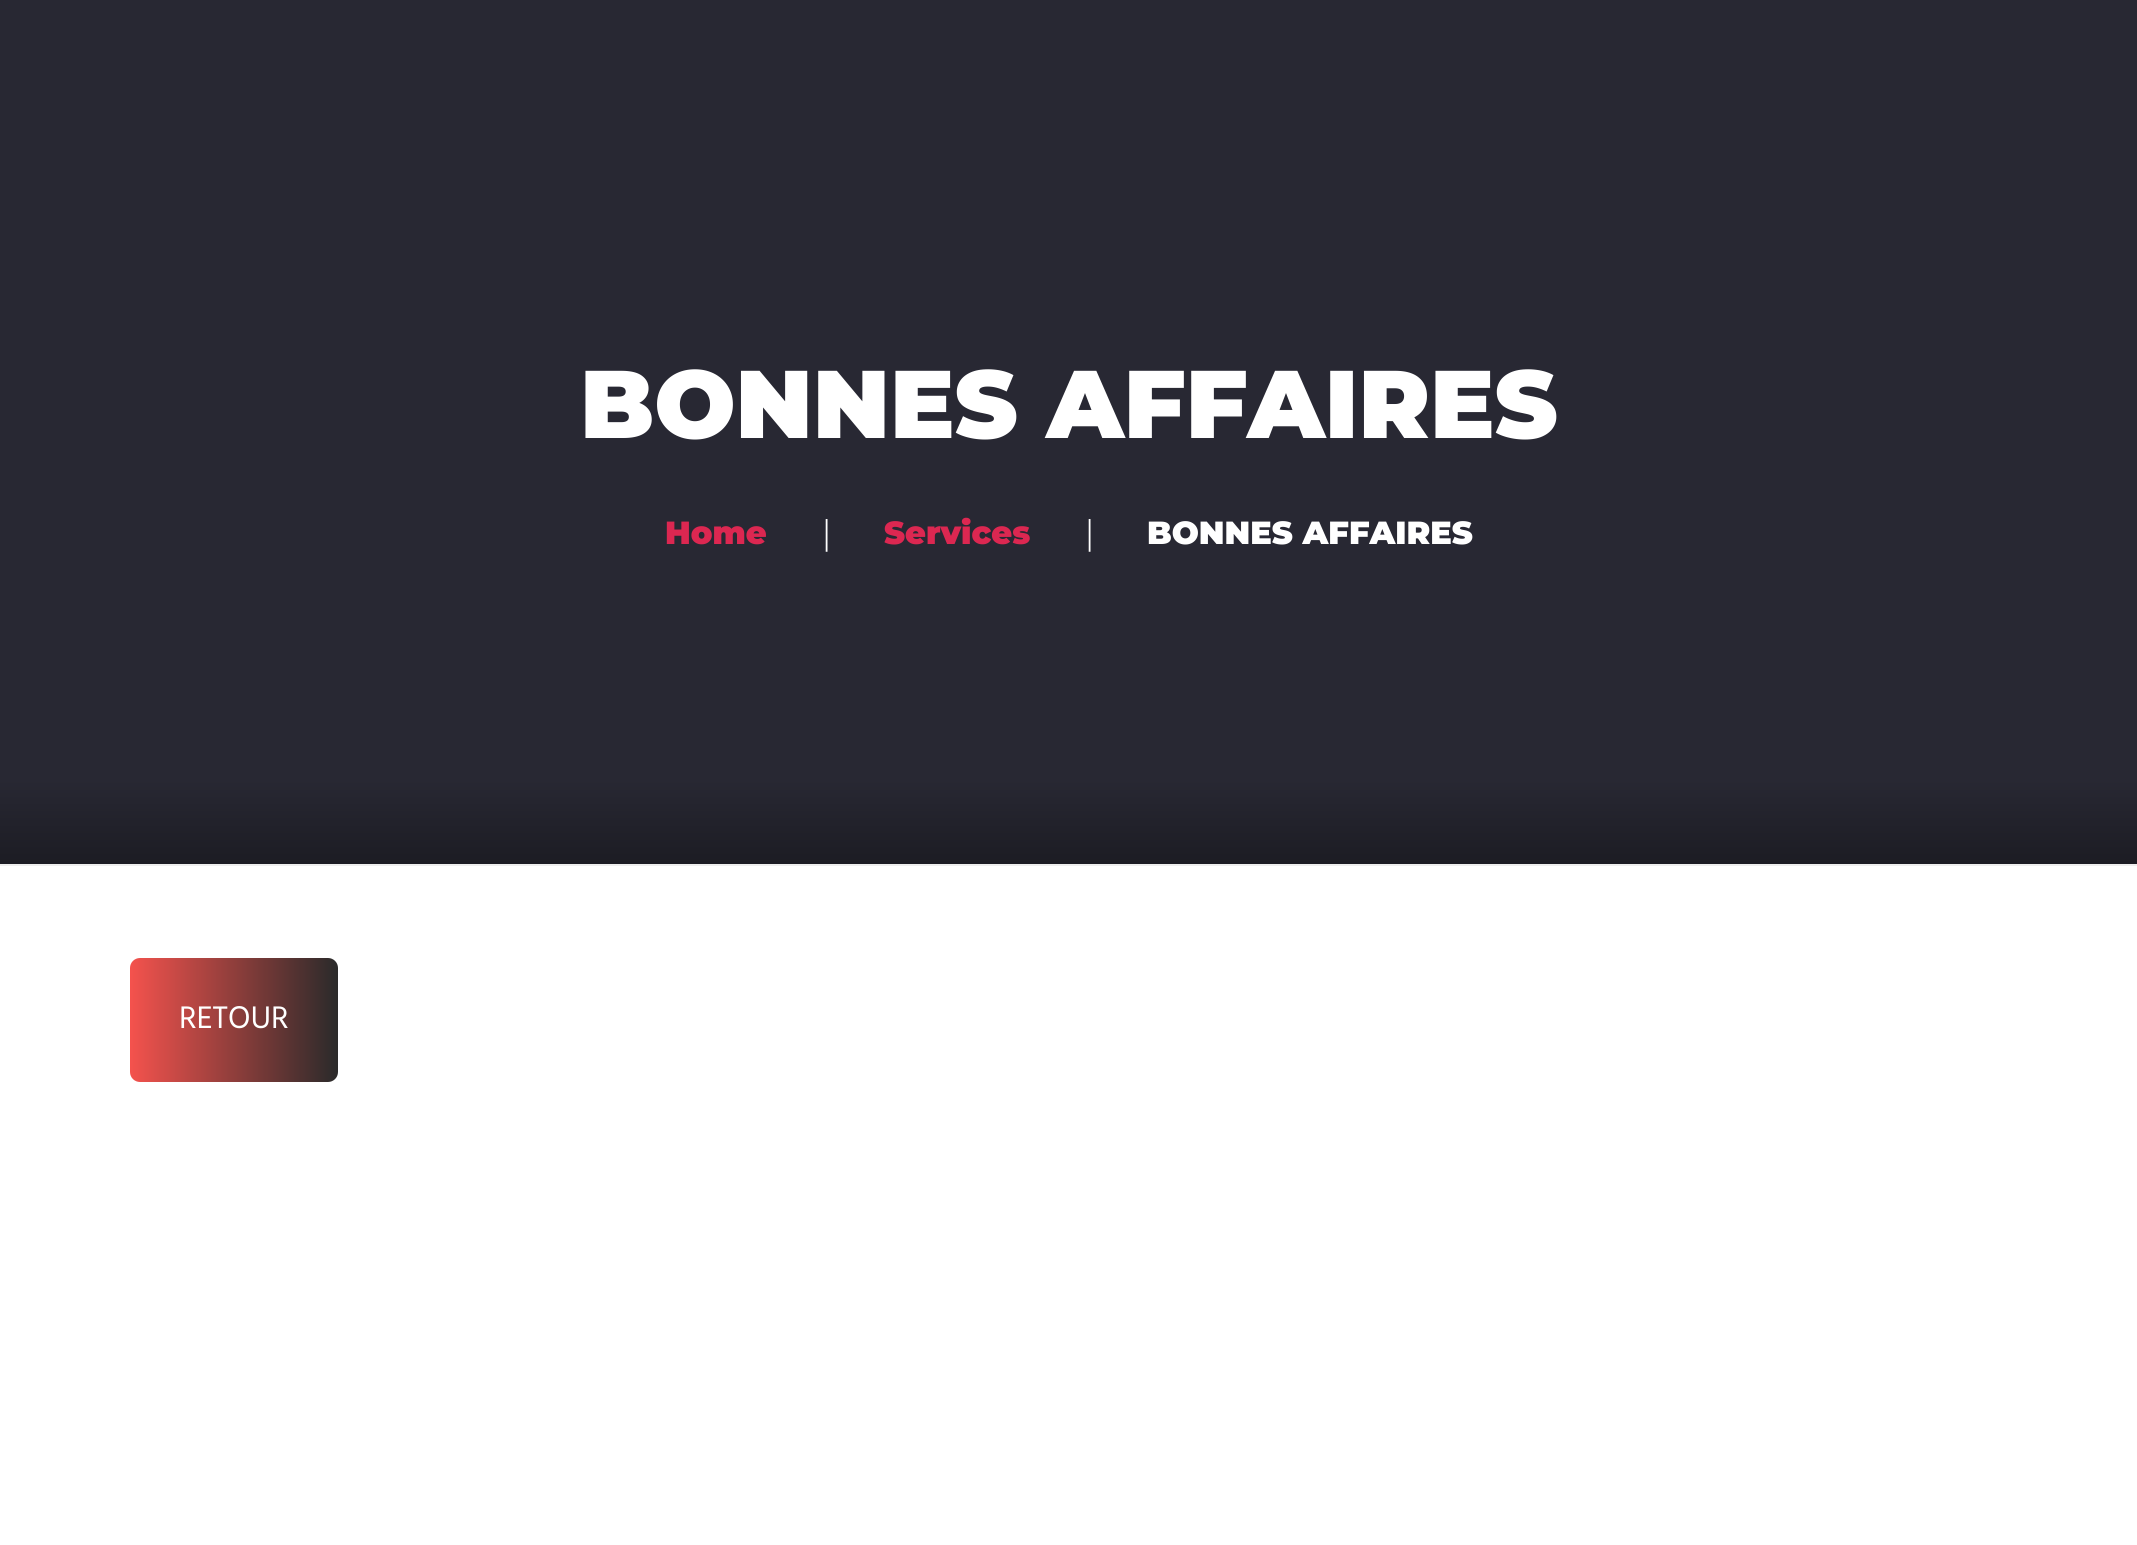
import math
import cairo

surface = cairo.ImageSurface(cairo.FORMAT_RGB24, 2137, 1545)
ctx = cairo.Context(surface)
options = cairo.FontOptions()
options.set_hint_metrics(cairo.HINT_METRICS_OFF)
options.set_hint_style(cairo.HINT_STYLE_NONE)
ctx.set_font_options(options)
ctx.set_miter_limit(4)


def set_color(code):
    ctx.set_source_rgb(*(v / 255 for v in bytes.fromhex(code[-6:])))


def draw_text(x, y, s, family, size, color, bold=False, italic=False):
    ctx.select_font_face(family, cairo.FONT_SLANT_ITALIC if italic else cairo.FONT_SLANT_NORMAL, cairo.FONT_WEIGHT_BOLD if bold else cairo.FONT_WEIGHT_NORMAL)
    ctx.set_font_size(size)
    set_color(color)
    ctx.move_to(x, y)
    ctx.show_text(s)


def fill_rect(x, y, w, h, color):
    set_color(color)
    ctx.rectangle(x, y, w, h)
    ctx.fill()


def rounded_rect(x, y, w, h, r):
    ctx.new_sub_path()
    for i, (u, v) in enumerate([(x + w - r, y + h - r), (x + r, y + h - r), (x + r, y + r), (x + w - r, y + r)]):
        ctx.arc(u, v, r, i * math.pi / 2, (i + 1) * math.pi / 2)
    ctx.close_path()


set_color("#ffffff")
ctx.paint()
fill_rect(0, 864, 2137, 2, "#eeeeee")
gradient = cairo.LinearGradient(1069, 0, 1069, 950)
gradient.add_color_stop_rgba(0.82, 0.157, 0.157, 0.2, 1)
gradient.add_color_stop_rgba(1, 0.063, 0.063, 0.078, 1)
ctx.set_source(gradient)
ctx.rectangle(0, 0, 2137, 864)
ctx.fill()
draw_text(580, 438, "BONNES AFFAIRES", "Montserrat Black", 96, "#ffffff")
draw_text(665, 544, "Home", "Montserrat Black", 32, "#dc2751")
draw_text(823, 544, "|", "Liberation Serif", 36, "#ffffff")
draw_text(884, 544, "Services", "Montserrat Black", 32, "#dc2751")
draw_text(1086, 544, "|", "Liberation Serif", 36, "#ffffff")
draw_text(1147, 544, "BONNES AFFAIRES", "Montserrat Black", 32, "#ffffff")
gradient = cairo.LinearGradient(130, 1020, 546, 1020)
gradient.add_color_stop_rgba(0, 0.957, 0.322, 0.302, 1)
gradient.add_color_stop_rgba(0.5, 0.165, 0.165, 0.165, 1)
gradient.add_color_stop_rgba(1, 0.957, 0.322, 0.302, 1)
ctx.set_source(gradient)
rounded_rect(130, 958, 208, 124, 10)
ctx.fill()
draw_text(179, 1028, "RETOUR", "Hind", 32, "#ffffff")
surface.write_to_png("output.png")
